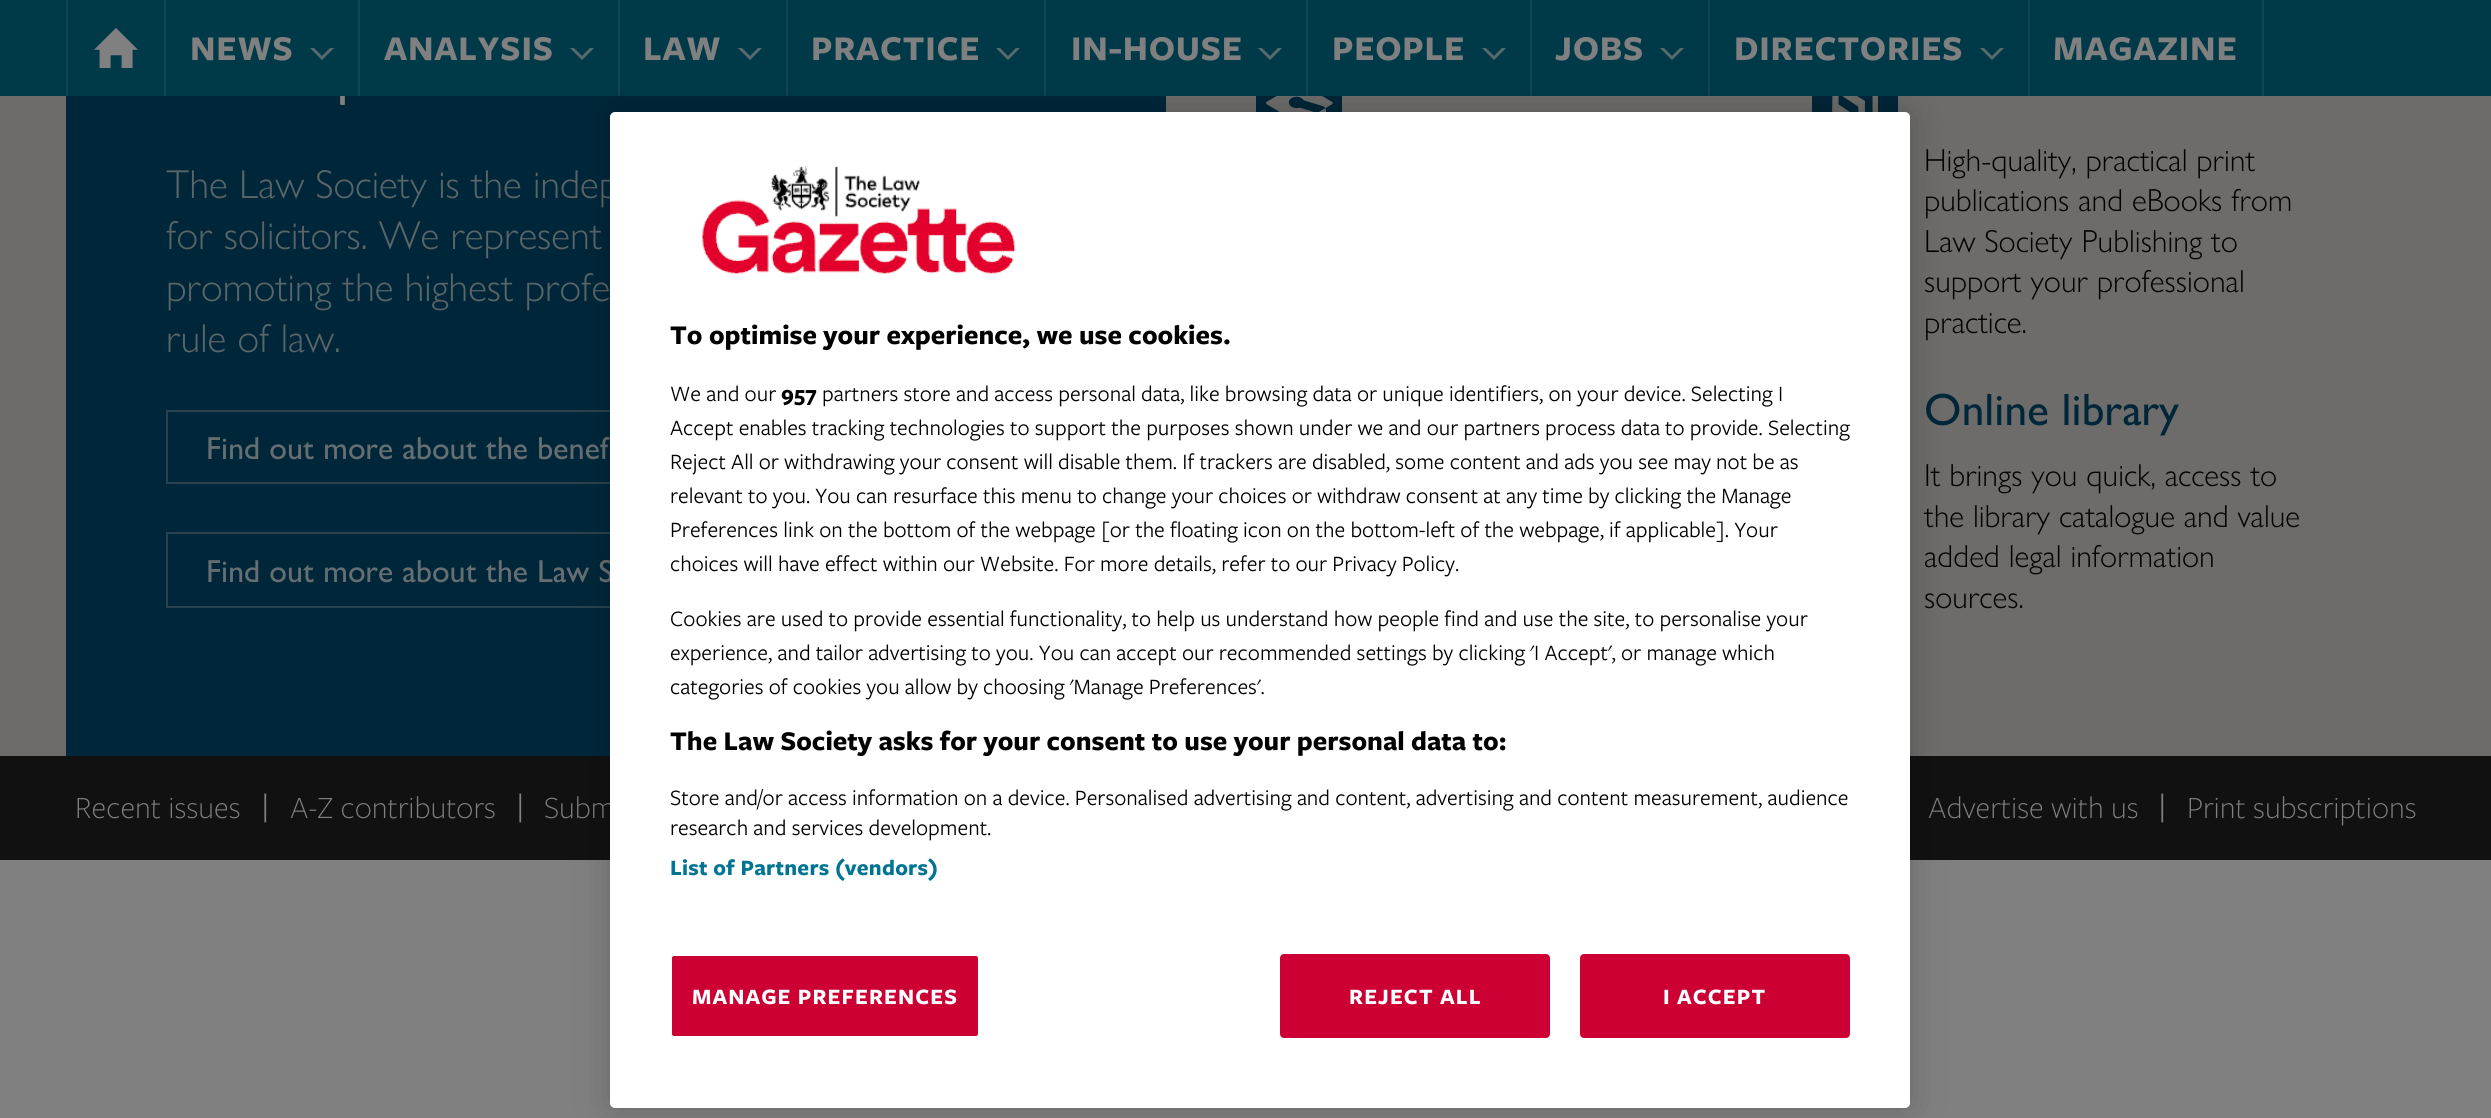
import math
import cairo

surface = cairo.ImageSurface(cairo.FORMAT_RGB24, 2491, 1118)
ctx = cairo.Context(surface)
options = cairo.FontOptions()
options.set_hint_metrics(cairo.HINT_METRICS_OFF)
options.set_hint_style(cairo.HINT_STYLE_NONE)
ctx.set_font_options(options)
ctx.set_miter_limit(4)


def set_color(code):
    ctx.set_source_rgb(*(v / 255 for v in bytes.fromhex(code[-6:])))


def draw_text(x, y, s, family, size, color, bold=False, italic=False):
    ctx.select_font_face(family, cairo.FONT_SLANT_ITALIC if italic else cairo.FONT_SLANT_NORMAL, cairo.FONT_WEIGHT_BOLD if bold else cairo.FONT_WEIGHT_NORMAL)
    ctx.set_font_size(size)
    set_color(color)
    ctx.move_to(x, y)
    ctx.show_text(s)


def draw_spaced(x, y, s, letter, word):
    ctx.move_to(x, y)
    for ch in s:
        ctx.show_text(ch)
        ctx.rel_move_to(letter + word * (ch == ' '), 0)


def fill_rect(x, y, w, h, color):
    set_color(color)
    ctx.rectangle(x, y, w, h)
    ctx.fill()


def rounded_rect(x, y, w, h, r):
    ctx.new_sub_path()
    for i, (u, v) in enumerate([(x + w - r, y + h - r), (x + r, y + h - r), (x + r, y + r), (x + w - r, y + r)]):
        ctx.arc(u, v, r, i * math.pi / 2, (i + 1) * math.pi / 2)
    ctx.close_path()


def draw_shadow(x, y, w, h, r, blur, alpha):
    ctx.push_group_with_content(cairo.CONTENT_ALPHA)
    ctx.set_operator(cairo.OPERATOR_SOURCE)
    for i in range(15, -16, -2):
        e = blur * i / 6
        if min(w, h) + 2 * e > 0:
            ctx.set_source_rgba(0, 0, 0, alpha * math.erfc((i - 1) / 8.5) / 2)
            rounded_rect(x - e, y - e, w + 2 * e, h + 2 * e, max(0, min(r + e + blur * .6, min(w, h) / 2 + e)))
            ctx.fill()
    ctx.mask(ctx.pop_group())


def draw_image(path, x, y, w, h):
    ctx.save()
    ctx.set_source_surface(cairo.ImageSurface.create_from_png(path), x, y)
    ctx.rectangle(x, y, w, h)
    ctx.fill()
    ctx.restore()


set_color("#808080")
ctx.paint()
fill_rect(0, 0, 2491, 96, "#003a49")
fill_rect(164, 0, 2, 96, "#124451")
fill_rect(66, 0, 2, 96, "#124451")
draw_image("assets/img1.png", 94, 28, 44, 40)
fill_rect(358, 0, 2, 96, "#124451")
ctx.select_font_face("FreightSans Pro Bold", cairo.FONT_SLANT_NORMAL, cairo.FONT_WEIGHT_BOLD)
ctx.set_font_size(36)
set_color("#808080")
draw_spaced(190, 60, "NEWS", 0.75, 0)
draw_image("assets/img2.png", 310, 48, 24, 12)
fill_rect(618, 0, 2, 96, "#124451")
set_color("#808080")
draw_spaced(384, 60, "ANALYSIS", 0.75, 0)
draw_image("assets/img2.png", 570, 48, 24, 12)
fill_rect(786, 0, 2, 96, "#124451")
set_color("#808080")
draw_spaced(643, 60, "LAW", 0.75, 0)
draw_image("assets/img2.png", 738, 48, 24, 12)
fill_rect(1044, 0, 2, 96, "#124451")
set_color("#808080")
draw_spaced(811, 60, "PRACTICE", 0.75, 0)
draw_image("assets/img2.png", 996, 48, 24, 12)
fill_rect(1306, 0, 2, 96, "#124451")
set_color("#808080")
draw_spaced(1071, 60, "IN-HOUSE", 0.75, 0)
draw_image("assets/img2.png", 1258, 48, 24, 12)
fill_rect(1530, 0, 2, 96, "#124451")
set_color("#808080")
draw_spaced(1332, 60, "PEOPLE", 0.75, 0)
draw_image("assets/img2.png", 1482, 48, 24, 12)
fill_rect(1708, 0, 2, 96, "#124451")
set_color("#808080")
draw_spaced(1555, 60, "JOBS", 0.75, 0)
draw_image("assets/img2.png", 1660, 48, 24, 12)
fill_rect(2028, 0, 2, 96, "#124451")
set_color("#808080")
draw_spaced(1734, 60, "DIRECTORIES", 0.75, 0)
draw_image("assets/img2.png", 1980, 48, 24, 12)
fill_rect(2262, 0, 2, 96, "#124451")
set_color("#808080")
draw_spaced(2053, 60, "MAGAZINE", 0.75, 0)
fill_rect(0, 96, 2491, 660, "#6d6c6b")
fill_rect(66, 96, 1100, 660, "#002739")
draw_image("assets/img3.png", 340, 96, 5, 9)
draw_text(166, 198, "The Law Society is the indep", "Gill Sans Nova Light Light", 40.5, "#5a656a")
draw_text(166, 249, "for solicitors. We represent", "Gill Sans Nova Light Light", 40.5, "#5a656a")
draw_text(166, 301, "promoting the highest profe", "Gill Sans Nova Light Light", 40.5, "#5a656a")
draw_text(166, 352, "rule of law.", "Gill Sans Nova Light Light", 40.5, "#5a656a")
ctx.rectangle(167, 411, 716, 72)
set_color("#294350")
ctx.stroke()
draw_text(206, 459, "Find out more about the benef", "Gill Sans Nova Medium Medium", 32, "#666e72")
ctx.rectangle(167, 533, 564, 74)
set_color("#294350")
ctx.stroke()
draw_text(206, 582, "Find out more about the Law S", "Gill Sans Nova Medium Medium", 32, "#666e72")
draw_image("assets/img4.png", 1256, 96, 86, 16)
draw_image("assets/img5.png", 1812, 96, 86, 16)
draw_text(1924, 171, "High-quality, practical print", "Gill Sans Nova Light Light", 32, "#000000")
draw_text(1924, 211, "publications and eBooks from", "Gill Sans Nova Light Light", 32, "#000000")
draw_text(1924, 252, "Law Society Publishing to", "Gill Sans Nova Light Light", 32, "#000000")
draw_text(1924, 292, "support your professional", "Gill Sans Nova Light Light", 32, "#000000")
draw_text(1924, 333, "practice.", "Gill Sans Nova Light Light", 32, "#000000")
draw_text(1924, 425, "Online library", "Gill Sans Nova Medium Medium", 45.5, "#002739")
draw_text(1924, 486, "It brings you quick, access to", "Gill Sans Nova Light Light", 32, "#000000")
draw_text(1924, 527, "the library catalogue and value", "Gill Sans Nova Light Light", 32, "#000000")
draw_text(1924, 567, "added legal information", "Gill Sans Nova Light Light", 32, "#000000")
draw_text(1924, 608, "sources.", "Gill Sans Nova Light Light", 32, "#000000")
fill_rect(0, 756, 2491, 104, "#111111")
draw_text(75, 818, "Recent issues", "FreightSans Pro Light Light", 32, "#808080")
draw_text(261, 816, "|", "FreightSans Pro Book", 32, "#808080")
draw_text(290, 818, "A-Z contributors", "FreightSans Pro Light Light", 32, "#808080")
draw_text(516, 816, "|", "FreightSans Pro Book", 32, "#808080")
draw_text(544, 818, "Subm", "FreightSans Pro Light Light", 32, "#808080")
draw_text(1928, 818, "Advertise with us", "FreightSans Pro Light Light", 32, "#808080")
draw_text(2158, 816, "|", "FreightSans Pro Book", 32, "#808080")
draw_text(2187, 818, "Print subscriptions", "FreightSans Pro Light Light", 32, "#808080")
set_color("#000000")
draw_shadow(610, 112, 1300, 996, 5, 18, 0.2)
set_color("#ffffff")
rounded_rect(610, 112, 1300, 996, 5)
ctx.fill()
draw_image("assets/img6.png", 702, 165, 313, 109)
draw_text(670, 344, "To optimise your experience, we use cookies.", "FreightSans Pro Bold", 28, "#000000", bold=True)
draw_text(670, 401, "We and our", "FreightSans Pro Book", 22.75, "#000000")
draw_text(781, 401, "957", "FreightSans Pro Bold", 22.75, "#000000", bold=True)
draw_text(822, 401, "partners store and access personal data, like browsing data or unique identifiers, on your device. Selecting I", "FreightSans Pro Book", 22.75, "#000000")
draw_text(670, 435, "Accept enables tracking technologies to support the purposes shown under we and our partners process data to provide. Selecting", "FreightSans Pro Book", 22.75, "#000000")
draw_text(670, 469, "Reject All or withdrawing your consent will disable them. If trackers are disabled, some content and ads you see may not be as", "FreightSans Pro Book", 22.75, "#000000")
draw_text(670, 503, "relevant to you. You can resurface this menu to change your choices or withdraw consent at any time by clicking the Manage", "FreightSans Pro Book", 22.75, "#000000")
draw_text(670, 537, "Preferences link on the bottom of the webpage [or the floating icon on the bottom-left of the webpage, if applicable]. Your", "FreightSans Pro Book", 22.75, "#000000")
draw_text(670, 571, "choices will have effect within our Website. For more details, refer to our Privacy Policy.", "FreightSans Pro Book", 22.75, "#000000")
draw_text(670, 626, "Cookies are used to provide essential functionality, to help us understand how people find and use the site, to personalise your", "FreightSans Pro Book", 22.75, "#000000")
draw_text(670, 660, "experience, and tailor advertising to you. You can accept our recommended settings by clicking 'I Accept', or manage which", "FreightSans Pro Book", 22.75, "#000000")
draw_text(670, 694, "categories of cookies you allow by choosing 'Manage Preferences'.", "FreightSans Pro Book", 22.75, "#000000")
draw_text(670, 750, "The Law Society asks for your consent to use your personal data to:", "FreightSans Pro Bold", 28, "#000000", bold=True)
draw_text(670, 805, "Store and/or access information on a device. Personalised advertising and content, advertising and content measurement, audience", "FreightSans Pro Book", 22.75, "#000000")
draw_text(670, 835, "research and services development.", "FreightSans Pro Book", 22.75, "#000000")
ctx.select_font_face("FreightSans Pro Bold", cairo.FONT_SLANT_NORMAL, cairo.FONT_WEIGHT_BOLD)
set_color("#007492")
draw_spaced(670, 875, "List of Partners (vendors)", 0.25, 0)
set_color("#cc0033")
rounded_rect(671, 955, 308, 82, 3)
ctx.fill_preserve()
set_color("#ffffff")
ctx.stroke()
draw_spaced(692, 1004, "MANAGE PREFERENCES", 1.1, 0)
set_color("#cc0033")
rounded_rect(1281, 955, 268, 82, 3)
ctx.fill_preserve()
ctx.stroke()
set_color("#ffffff")
draw_spaced(1349, 1004, "REJECT ALL", 1.1, 0)
set_color("#cc0033")
rounded_rect(1581, 955, 268, 82, 3)
ctx.fill_preserve()
ctx.stroke()
set_color("#ffffff")
draw_spaced(1663, 1004, "I ACCEPT", 1.1, 0)
surface.write_to_png("output.png")
